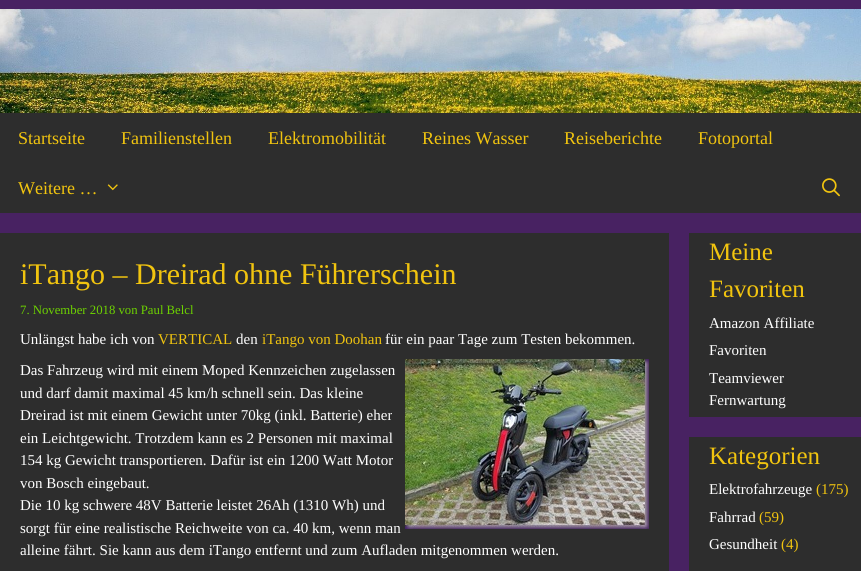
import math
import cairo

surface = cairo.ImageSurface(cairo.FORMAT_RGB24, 861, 571)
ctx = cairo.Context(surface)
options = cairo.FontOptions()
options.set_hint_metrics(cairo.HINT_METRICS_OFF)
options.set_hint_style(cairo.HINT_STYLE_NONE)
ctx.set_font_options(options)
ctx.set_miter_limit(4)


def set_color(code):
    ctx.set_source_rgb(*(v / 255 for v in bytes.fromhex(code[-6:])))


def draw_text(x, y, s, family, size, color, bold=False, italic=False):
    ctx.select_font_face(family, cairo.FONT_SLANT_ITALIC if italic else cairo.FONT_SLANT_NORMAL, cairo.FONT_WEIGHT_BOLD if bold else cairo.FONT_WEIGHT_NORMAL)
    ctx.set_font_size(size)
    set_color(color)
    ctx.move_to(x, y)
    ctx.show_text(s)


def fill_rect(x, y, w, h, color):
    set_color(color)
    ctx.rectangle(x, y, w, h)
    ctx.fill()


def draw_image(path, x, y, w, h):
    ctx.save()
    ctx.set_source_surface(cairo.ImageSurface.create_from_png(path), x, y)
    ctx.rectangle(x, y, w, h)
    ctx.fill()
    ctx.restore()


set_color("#482262")
ctx.paint()
draw_image("assets/img1.png", 0, 9, 861, 104)
fill_rect(0, 113, 861, 100, "#2d2d2d")
draw_text(18, 144, "Startseite", "Liberation Serif", 18, "#f1c40f")
draw_text(121, 144, "Familienstellen", "Liberation Serif", 18, "#f1c40f")
draw_text(268, 144, "Elektromobilität", "Liberation Serif", 18, "#f1c40f")
draw_text(422, 144, "Reines Wasser", "Liberation Serif", 18, "#f1c40f")
draw_text(564, 144, "Reiseberichte", "Liberation Serif", 18, "#f1c40f")
draw_text(698, 144, "Fotoportal", "Liberation Serif", 18, "#f1c40f")
draw_text(18, 194, "Weitere …", "Liberation Serif", 18, "#f1c40f")
draw_image("assets/img2.png", 107, 184, 11, 7)
draw_image("assets/img3.png", 822, 178, 18, 19)
fill_rect(0, 233, 669, 338, "#2d2d2d")
draw_text(20, 284, "iTango – Dreirad ohne Führerschein", "Liberation Serif", 30, "#f1c40f")
draw_text(20, 314, "7. November 2018 von Paul Belcl", "Liberation Serif", 12.75, "#6dd300")
draw_text(20, 344, "Unlängst habe ich von", "Liberation Serif", 15, "#ffffff")
draw_text(158, 344, "VERTICAL", "Liberation Serif", 15, "#f1c40f")
draw_text(236, 344, "den", "Liberation Serif", 15, "#ffffff")
draw_text(262, 344, "iTango von Doohan", "Liberation Serif", 15, "#f1c40f")
draw_text(385, 344, "für ein paar Tage zum Testen bekommen.", "Liberation Serif", 15, "#ffffff")
draw_text(20, 375, "Das Fahrzeug wird mit einem Moped Kennzeichen zugelassen", "Liberation Serif", 15, "#ffffff")
draw_image("assets/img4.png", 405, 359, 244, 170)
draw_text(20, 398, "und darf damit maximal 45 km/h schnell sein. Das kleine", "Liberation Serif", 15, "#ffffff")
draw_text(20, 420, "Dreirad ist mit einem Gewicht unter 70kg (inkl. Batterie) eher", "Liberation Serif", 15, "#ffffff")
draw_text(20, 443, "ein Leichtgewicht. Trotzdem kann es 2 Personen mit maximal", "Liberation Serif", 15, "#ffffff")
draw_text(20, 465, "154 kg Gewicht transportieren. Dafür ist ein 1200 Watt Motor", "Liberation Serif", 15, "#ffffff")
draw_text(20, 488, "von Bosch eingebaut.", "Liberation Serif", 15, "#ffffff")
draw_text(20, 510, "Die 10 kg schwere 48V Batterie leistet 26Ah (1310 Wh) und", "Liberation Serif", 15, "#ffffff")
draw_text(20, 533, "sorgt für eine realistische Reichweite von ca. 40 km, wenn man", "Liberation Serif", 15, "#ffffff")
draw_text(20, 555, "alleine fährt. Sie kann aus dem iTango entfernt und zum Aufladen mitgenommen werden.", "Liberation Serif", 15, "#ffffff")
fill_rect(689, 233, 172, 184, "#2d2d2d")
draw_text(709, 260, "Meine", "Liberation Serif", 25, "#f1c40f")
draw_text(709, 297, "Favoriten", "Liberation Serif", 25, "#f1c40f")
draw_text(709, 328, "Amazon Affiliate", "Liberation Serif", 15, "#ffffff")
draw_text(709, 355, "Favoriten", "Liberation Serif", 15, "#ffffff")
draw_text(709, 383, "Teamviewer", "Liberation Serif", 15, "#ffffff")
draw_text(709, 405, "Fernwartung", "Liberation Serif", 15, "#ffffff")
fill_rect(689, 437, 172, 134, "#2d2d2d")
draw_text(709, 464, "Kategorien", "Liberation Serif", 25, "#f1c40f")
draw_text(709, 494, "Elektrofahrzeuge", "Liberation Serif", 15, "#ffffff")
draw_text(816, 494, "(175)", "Liberation Serif", 15, "#f1c40f")
draw_text(709, 522, "Fahrrad", "Liberation Serif", 15, "#ffffff")
draw_text(759, 522, "(59)", "Liberation Serif", 15, "#f1c40f")
draw_text(709, 549, "Gesundheit", "Liberation Serif", 15, "#ffffff")
draw_text(781, 549, "(4)", "Liberation Serif", 15, "#f1c40f")
surface.write_to_png("output.png")
